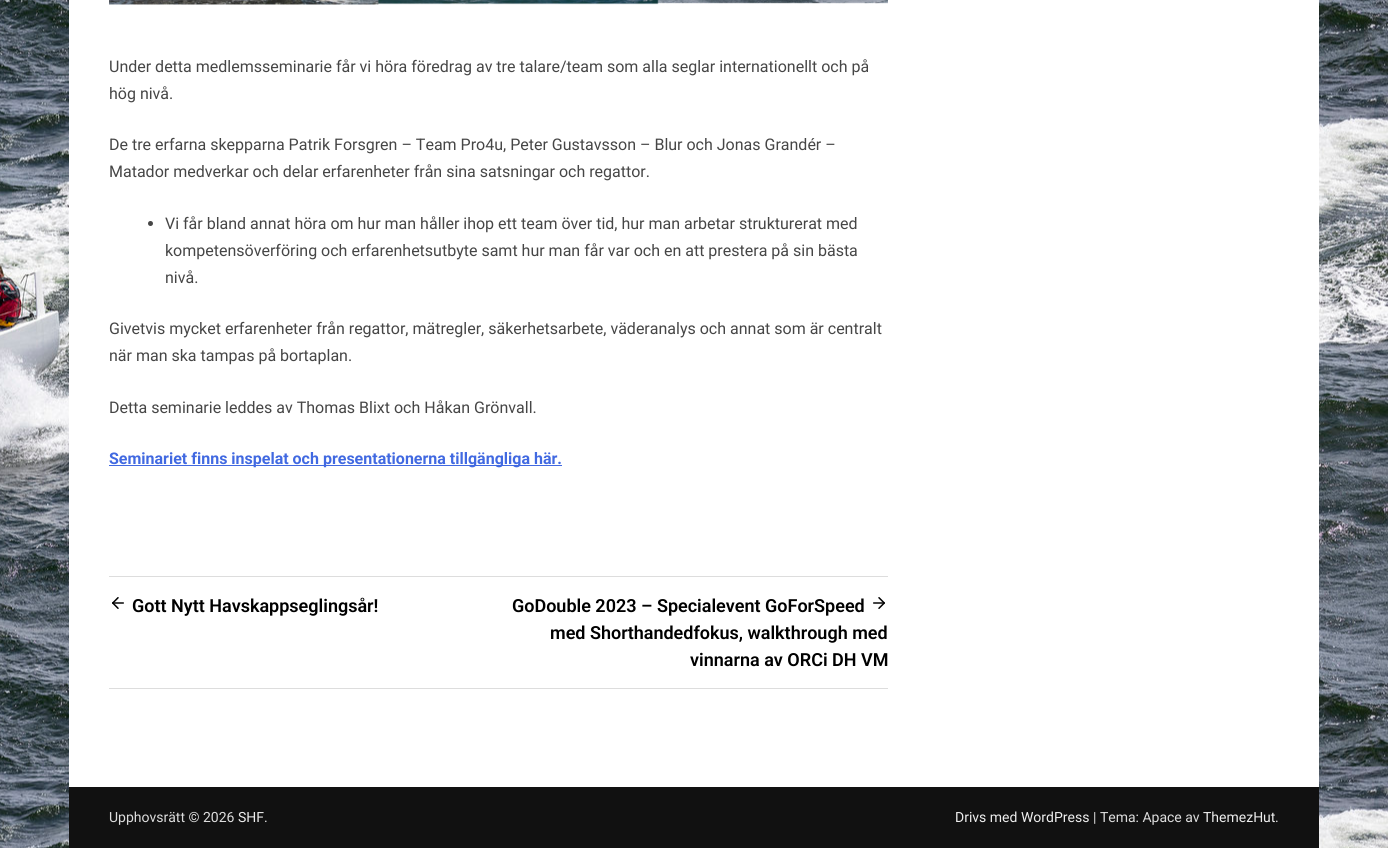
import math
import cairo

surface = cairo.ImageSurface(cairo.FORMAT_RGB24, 1388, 848)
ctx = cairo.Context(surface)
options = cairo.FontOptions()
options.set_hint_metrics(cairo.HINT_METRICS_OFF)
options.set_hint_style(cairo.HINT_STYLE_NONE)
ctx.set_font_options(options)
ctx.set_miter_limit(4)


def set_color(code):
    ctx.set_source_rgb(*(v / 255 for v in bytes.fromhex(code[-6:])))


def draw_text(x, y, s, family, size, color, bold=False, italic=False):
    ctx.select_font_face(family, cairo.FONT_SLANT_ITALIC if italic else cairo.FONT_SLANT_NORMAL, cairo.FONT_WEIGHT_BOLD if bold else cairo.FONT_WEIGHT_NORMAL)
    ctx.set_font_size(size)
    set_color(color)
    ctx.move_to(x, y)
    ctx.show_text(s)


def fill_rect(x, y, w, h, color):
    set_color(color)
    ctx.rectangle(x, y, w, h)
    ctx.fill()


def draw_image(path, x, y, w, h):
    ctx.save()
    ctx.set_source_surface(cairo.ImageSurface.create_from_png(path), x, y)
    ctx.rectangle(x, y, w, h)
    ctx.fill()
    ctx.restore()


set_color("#ffffff")
ctx.paint()
draw_image("assets/img1.png", 0, 0, 1388, 848)
fill_rect(69, 0, 1250, 787, "#ffffff")
draw_image("assets/img2.png", 109, 0, 779, 5)
draw_text(109, 72, "Under detta medlemsseminarie får vi höra föredrag av tre talare/team som alla seglar internationellt och på", "Roboto", 16, "#464646")
draw_text(109, 99, "hög nivå.", "Roboto", 16, "#464646")
draw_text(109, 150, "De tre erfarna skepparna Patrik Forsgren – Team Pro4u, Peter Gustavsson – Blur och Jonas Grandér –", "Roboto", 16, "#464646")
draw_text(109, 177, "Matador medverkar och delar erfarenheter från sina satsningar och regattor.", "Roboto", 16, "#464646")
ctx.new_path()
ctx.arc(150.5, 223.5, 2.5, 0, 2 * math.pi)
ctx.fill()
draw_text(165, 229, "Vi får bland annat höra om hur man håller ihop ett team över tid, hur man arbetar strukturerat med", "Roboto", 16, "#464646")
draw_text(165, 256, "kompetensöverföring och erfarenhetsutbyte samt hur man får var och en att prestera på sin bästa", "Roboto", 16, "#464646")
draw_text(165, 283, "nivå.", "Roboto", 16, "#464646")
draw_text(109, 334, "Givetvis mycket erfarenheter från regattor, mätregler, säkerhetsarbete, väderanalys och annat som är centralt", "Roboto", 16, "#464646")
draw_text(109, 361, "när man ska tampas på bortaplan.", "Roboto", 16, "#464646")
draw_text(109, 413, "Detta seminarie leddes av Thomas Blixt och Håkan Grönvall.", "Roboto", 16, "#464646")
fill_rect(109, 465, 453, 1, "#4169e1")
draw_text(109, 464, "Seminariet finns inspelat och presentationerna tillgängliga här.", "Roboto", 16, "#4169e1", bold=True)
fill_rect(109, 576, 779, 1, "#dddddd")
fill_rect(109, 688, 779, 1, "#dddddd")
draw_image("assets/img3.png", 112, 597, 12, 12)
draw_text(132, 612, "Gott Nytt Havskappseglingsår!", "Roboto SemiBold", 18, "#000000")
draw_text(512, 612, "GoDouble 2023 – Specialevent GoForSpeed", "Roboto SemiBold", 18, "#000000")
draw_image("assets/img4.png", 873, 597, 12, 12)
draw_text(550, 639, "med Shorthandedfokus, walkthrough med", "Roboto SemiBold", 18, "#000000")
draw_text(690, 666, "vinnarna av ORCi DH VM", "Roboto SemiBold", 18, "#000000")
fill_rect(69, 787, 1250, 61, "#111111")
draw_text(109, 822, "Upphovsrätt © 2026", "Roboto", 14, "#dddddd")
draw_text(238, 822, "SHF", "Roboto", 14, "#eeeeee")
draw_text(264, 822, ".", "Roboto", 14, "#dddddd")
draw_text(955, 822, "Drivs med WordPress", "Roboto", 14, "#eeeeee")
draw_text(1093, 822, "| Tema: Apace av", "Roboto", 14, "#dddddd")
draw_text(1203, 822, "ThemezHut", "Roboto", 14, "#eeeeee")
draw_text(1275, 822, ".", "Roboto", 14, "#dddddd")
surface.write_to_png("output.png")
